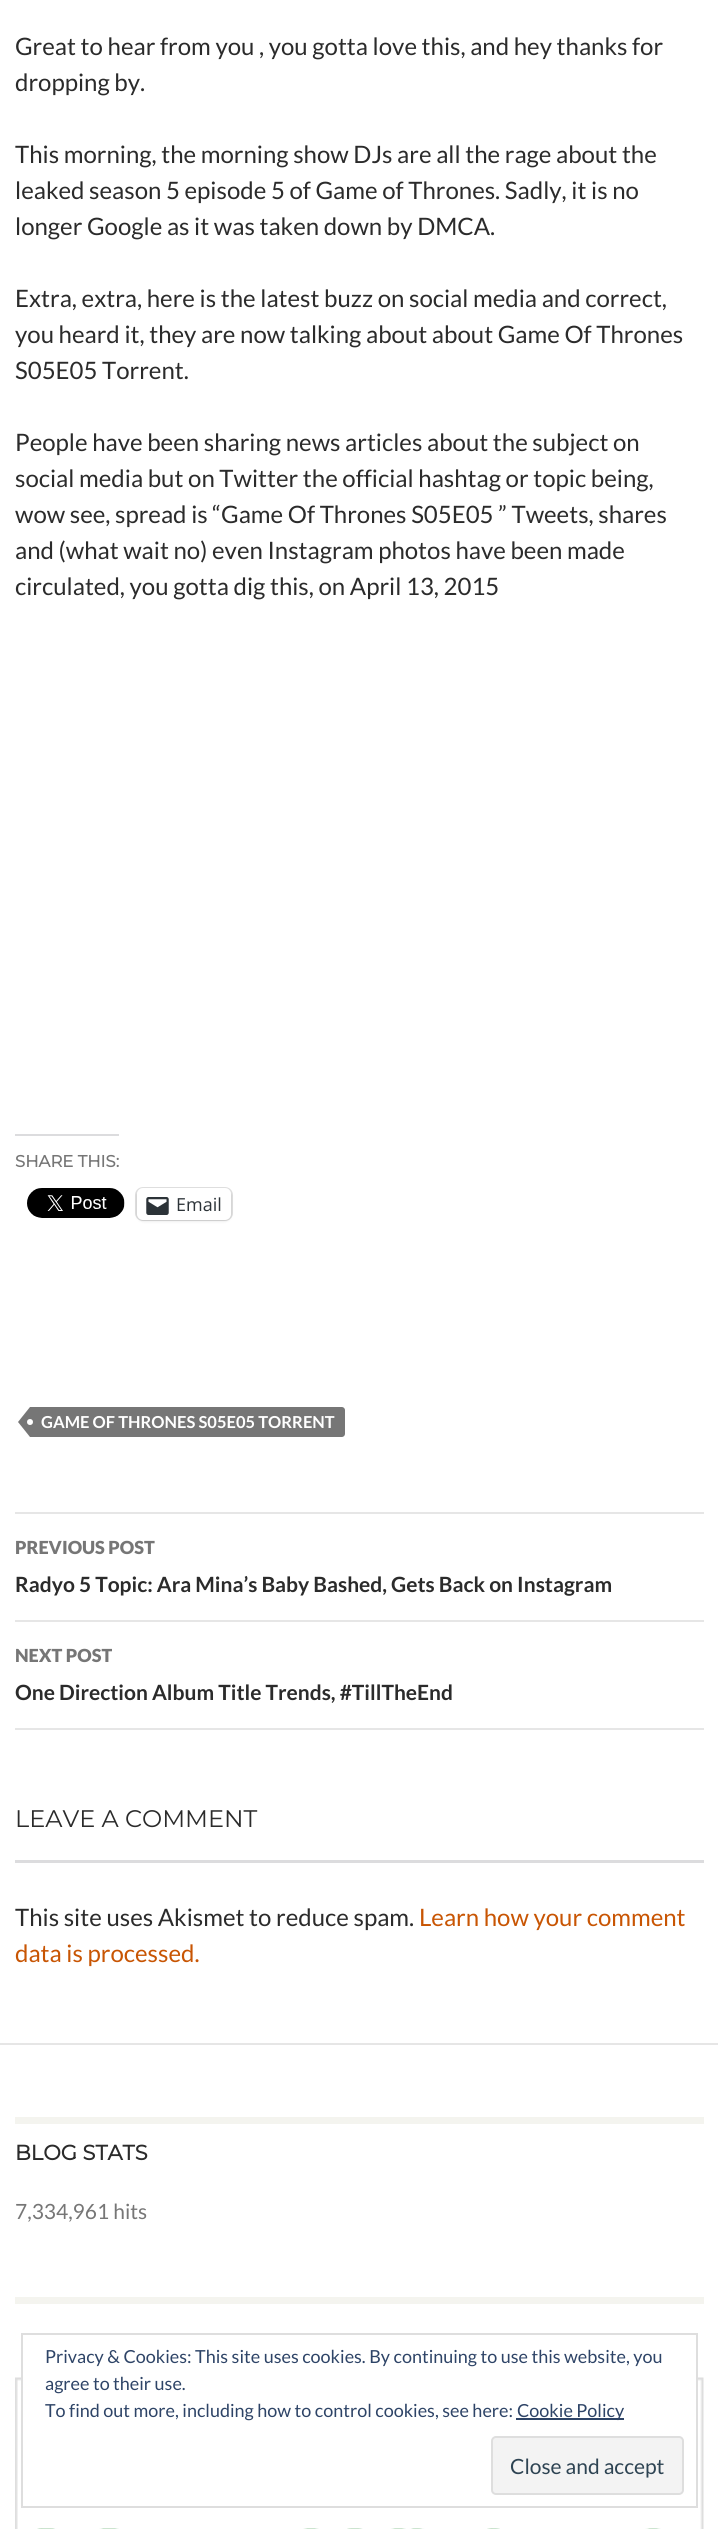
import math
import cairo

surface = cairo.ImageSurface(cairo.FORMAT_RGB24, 718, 2529)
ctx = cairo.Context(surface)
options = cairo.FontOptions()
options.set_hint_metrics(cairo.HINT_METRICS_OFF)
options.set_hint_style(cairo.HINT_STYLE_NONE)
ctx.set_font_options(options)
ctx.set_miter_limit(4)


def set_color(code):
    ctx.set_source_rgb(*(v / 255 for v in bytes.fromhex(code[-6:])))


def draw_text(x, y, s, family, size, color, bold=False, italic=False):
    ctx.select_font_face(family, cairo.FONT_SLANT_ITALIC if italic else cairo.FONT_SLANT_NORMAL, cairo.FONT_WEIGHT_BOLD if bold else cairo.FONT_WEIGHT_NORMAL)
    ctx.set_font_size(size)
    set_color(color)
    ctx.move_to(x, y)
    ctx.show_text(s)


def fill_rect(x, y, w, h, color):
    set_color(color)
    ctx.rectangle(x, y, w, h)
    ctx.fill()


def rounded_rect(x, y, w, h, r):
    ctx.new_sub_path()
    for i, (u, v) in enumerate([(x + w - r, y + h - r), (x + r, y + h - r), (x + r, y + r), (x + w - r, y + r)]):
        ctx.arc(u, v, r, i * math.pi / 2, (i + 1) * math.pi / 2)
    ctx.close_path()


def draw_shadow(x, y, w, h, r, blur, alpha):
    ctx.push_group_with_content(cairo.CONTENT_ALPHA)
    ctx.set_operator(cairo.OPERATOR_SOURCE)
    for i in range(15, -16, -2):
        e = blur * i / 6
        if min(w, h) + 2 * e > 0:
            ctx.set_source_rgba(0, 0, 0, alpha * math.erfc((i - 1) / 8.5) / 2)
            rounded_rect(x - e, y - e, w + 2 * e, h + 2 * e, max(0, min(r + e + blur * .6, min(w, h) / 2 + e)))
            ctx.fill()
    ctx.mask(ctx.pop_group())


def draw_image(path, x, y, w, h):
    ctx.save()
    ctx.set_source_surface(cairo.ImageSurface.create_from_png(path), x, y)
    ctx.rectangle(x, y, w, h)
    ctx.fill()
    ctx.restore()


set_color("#ffffff")
ctx.paint()
draw_text(15, 55, "Great to hear from you , you gotta love this, and hey thanks for", "Lato", 24, "#2b2b2b")
draw_text(15, 91, "dropping by.", "Lato", 24, "#2b2b2b")
draw_text(15, 163, "This morning, the morning show DJs are all the rage about the", "Lato", 24, "#2b2b2b")
draw_text(15, 199, "leaked season 5 episode 5 of Game of Thrones. Sadly, it is no", "Lato", 24, "#2b2b2b")
draw_text(15, 235, "longer Google as it was taken down by DMCA.", "Lato", 24, "#2b2b2b")
draw_text(15, 307, "Extra, extra, here is the latest buzz on social media and correct,", "Lato", 24, "#2b2b2b")
draw_text(15, 343, "you heard it, they are now talking about about Game Of Thrones", "Lato", 24, "#2b2b2b")
draw_text(15, 379, "S05E05 Torrent.", "Lato", 24, "#2b2b2b")
draw_text(15, 451, "People have been sharing news articles about the subject on", "Lato", 24, "#2b2b2b")
draw_text(15, 487, "social media but on Twitter the official hashtag or topic being,", "Lato", 24, "#2b2b2b")
draw_text(15, 523, "wow see, spread is “Game Of Thrones S05E05 ” Tweets, shares", "Lato", 24, "#2b2b2b")
draw_text(15, 559, "and (what wait no) even Instagram photos have been made", "Lato", 24, "#2b2b2b")
draw_text(15, 595, "circulated, you gotta dig this, on April 13, 2015", "Lato", 24, "#2b2b2b")
fill_rect(15, 1134, 104, 2, "#dcdcde")
draw_text(15, 1167, "SHARE THIS:", "Montserrat", 16.5, "#767676", bold=True)
draw_image("assets/img1.png", 27, 1188, 98, 30)
rounded_rect(136, 1188, 96, 32, 7)
set_color("#e0e0e0")
ctx.stroke()
set_color("#000000")
draw_shadow(137, 1190, 94, 31, 6, 1.5, 0.12)
set_color("#ffffff")
rounded_rect(137, 1188, 94, 32, 6)
ctx.fill()
draw_image("assets/img2.png", 146, 1197, 23, 18)
draw_text(176, 1211, "Email", "Open Sans", 18, "#2c3338")
set_color("#767676")
ctx.new_path()
ctx.move_to(30, 1407)
ctx.line_to(342, 1407)
ctx.curve_to(343.5, 1407, 345, 1408.5, 345, 1410)
ctx.line_to(345, 1434)
ctx.curve_to(345, 1435.5, 343.5, 1437, 342, 1437)
ctx.line_to(30, 1437)
ctx.close_path()
ctx.fill()
ctx.new_path()
ctx.move_to(30, 1407)
ctx.line_to(30, 1437)
ctx.line_to(18, 1422)
ctx.close_path()
ctx.fill()
draw_text(41, 1428, "GAME OF THRONES S05E05 TORRENT", "Lato", 16.5, "#ffffff", bold=True)
ctx.new_path()
ctx.arc(30, 1422, 3, 0, 2 * math.pi)
ctx.fill()
fill_rect(15, 1512, 689, 2, "#e6e6e6")
fill_rect(15, 1620, 689, 2, "#e6e6e6")
draw_text(15, 1554, "PREVIOUS POST", "Lato Black", 18, "#767676")
draw_text(15, 1592, "Radyo 5 Topic: Ara Mina’s Baby Bashed, Gets Back on Instagram", "Lato", 21, "#2b2b2b", bold=True)
fill_rect(15, 1728, 689, 2, "#e6e6e6")
draw_text(15, 1662, "NEXT POST", "Lato Black", 18, "#767676")
draw_text(15, 1700, "One Direction Album Title Trends, #TillTheEnd", "Lato", 21, "#2b2b2b", bold=True)
draw_text(15, 1827, "LEAVE A COMMENT", "Montserrat Thin", 24, "#2b2b2b")
fill_rect(15, 1860, 689, 3, "#dcdcde")
draw_text(15, 1926, "This site uses Akismet to reduce spam.", "Lato", 24, "#2b2b2b")
draw_text(419, 1926, "Learn how your comment", "Lato", 24, "#c85503")
draw_text(15, 1962, "data is processed.", "Lato", 24, "#c85503")
fill_rect(0, 2043, 718, 2, "#e6e6e6")
fill_rect(15, 2117, 689, 7, "#f4f4ef")
draw_text(15, 2160, "BLOG STATS", "Montserrat", 21, "#2b2b2b", bold=True)
draw_text(15, 2219, "7,334,961 hits", "Lato", 21, "#767676")
fill_rect(15, 2297, 689, 7, "#f4f4ef")
draw_image("assets/img3.png", 15, 2377, 689, 152)
fill_rect(23, 2377, 673, 107, "#ffffff")
ctx.rectangle(22, 2334, 675, 173)
set_color("#dedede")
ctx.stroke()
draw_text(45, 2363, "Privacy & Cookies: This site uses cookies. By continuing to use this website, you", "Lato", 18, "#2e4467")
draw_text(45, 2390, "agree to their use.", "Lato", 18, "#2e4467")
draw_text(45, 2417, "To find out more, including how to control cookies, see here:", "Lato", 18, "#2e4467")
fill_rect(516, 2418, 108, 2, "#2e4467")
draw_text(517, 2417, "Cookie Policy", "Lato", 18, "#2e4467")
set_color("#f3f3f3")
rounded_rect(492, 2437, 191, 57, 4)
ctx.fill_preserve()
set_color("#dedede")
ctx.stroke()
draw_text(510, 2474, "Close and accept", "Lato", 21, "#2e4453")
surface.write_to_png("output.png")
